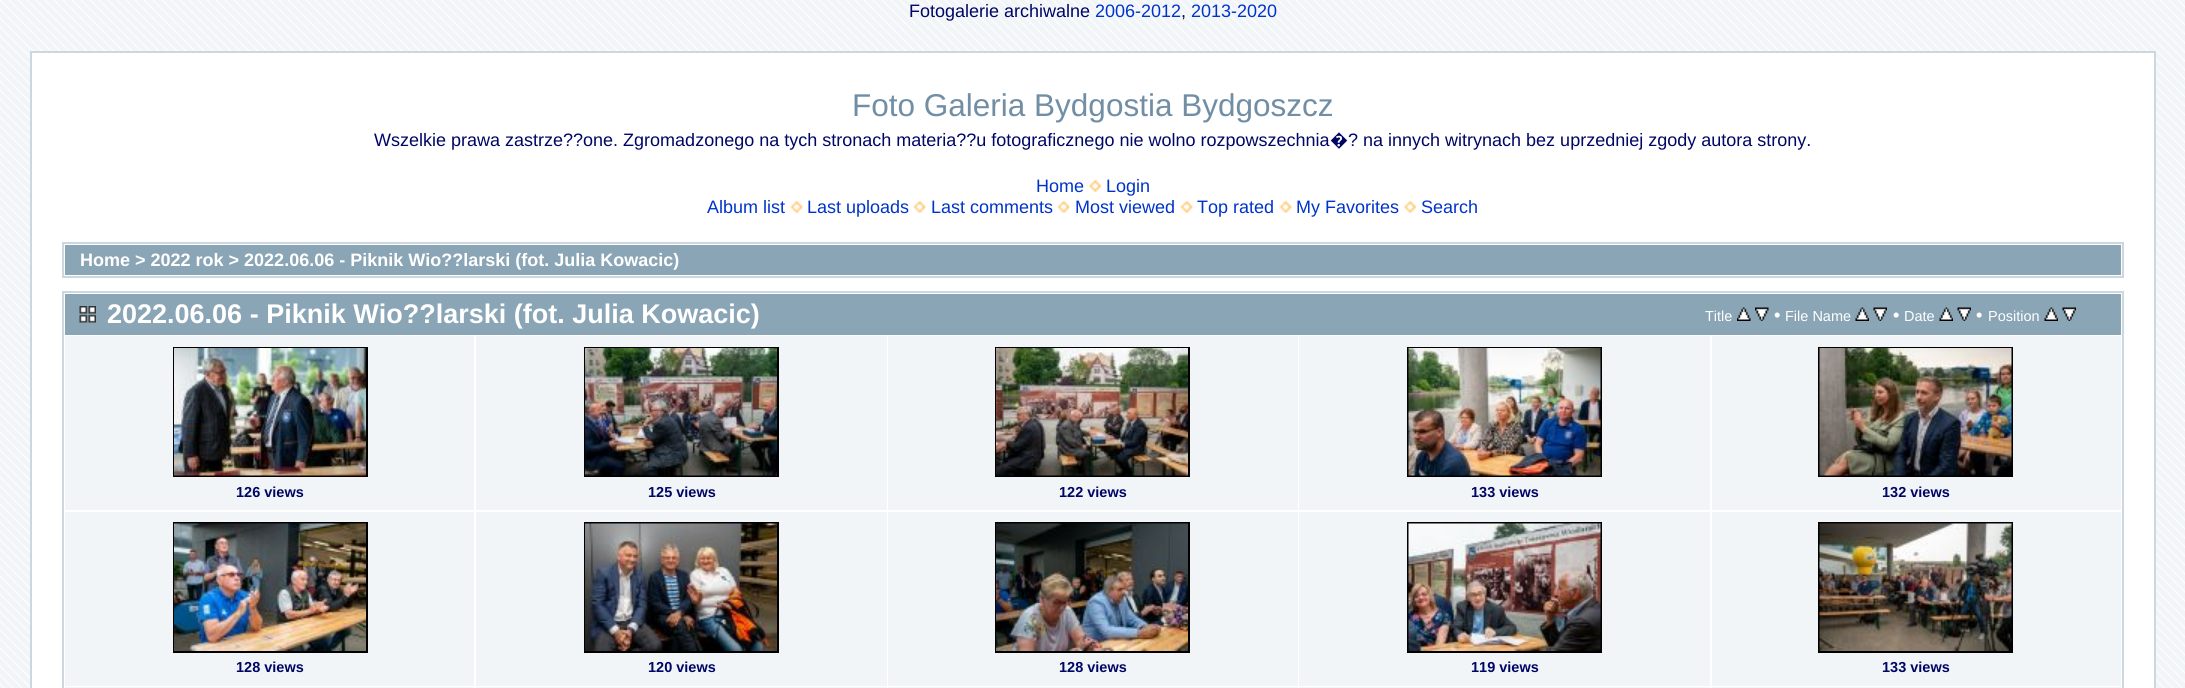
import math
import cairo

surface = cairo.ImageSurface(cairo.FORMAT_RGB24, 2185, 688)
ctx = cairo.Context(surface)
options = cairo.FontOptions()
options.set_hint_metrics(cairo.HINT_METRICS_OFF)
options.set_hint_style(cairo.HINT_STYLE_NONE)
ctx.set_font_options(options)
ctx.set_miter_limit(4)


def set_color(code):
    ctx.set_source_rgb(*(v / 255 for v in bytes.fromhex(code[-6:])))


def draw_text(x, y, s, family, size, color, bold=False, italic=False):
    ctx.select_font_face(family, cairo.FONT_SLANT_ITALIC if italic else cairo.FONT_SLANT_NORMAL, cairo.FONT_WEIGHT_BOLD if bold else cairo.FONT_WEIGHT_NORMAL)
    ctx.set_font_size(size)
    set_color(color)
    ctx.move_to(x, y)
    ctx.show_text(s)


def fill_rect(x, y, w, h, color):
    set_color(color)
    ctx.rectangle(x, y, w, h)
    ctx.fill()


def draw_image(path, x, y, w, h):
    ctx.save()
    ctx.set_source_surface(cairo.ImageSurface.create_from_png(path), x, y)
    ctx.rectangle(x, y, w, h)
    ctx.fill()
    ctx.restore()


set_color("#f2f5f7")
ctx.paint()
draw_image("assets/img1.png", 0, 0, 2185, 688)
draw_text(909, 17, "Fotogalerie archiwalne", "Liberation Sans", 18, "#000666")
draw_text(1095, 17, "2006-2012", "Liberation Sans", 18, "#0033cc")
draw_text(1181, 17, ",", "Liberation Sans", 18, "#000666")
draw_text(1191, 17, "2013-2020", "Liberation Sans", 18, "#0033cc")
set_color("#ffffff")
ctx.rectangle(31, 52, 2124, 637)
ctx.fill_preserve()
set_color("#ccd7e0")
ctx.stroke()
draw_text(852, 116, "Foto Galeria Bydgostia Bydgoszcz", "Liberation Sans", 31.5, "#718ea5")
draw_text(374, 146, "Wszelkie prawa zastrze??one. Zgromadzonego na tych stronach materia??u fotograficznego nie wolno rozpowszechnia", "Liberation Sans", 18, "#000666")
draw_text(1330, 146, "�", "Noto Sans", 18, "#000666")
draw_text(1348, 146, "? na innych witrynach bez uprzedniej zgody autora strony.", "Liberation Sans", 18, "#000666")
draw_text(1036, 192, "Home", "Liberation Sans", 18, "#0033cc")
draw_image("assets/img2.png", 1089, 180, 12, 12)
draw_text(1106, 192, "Login", "Liberation Sans", 18, "#0033cc")
draw_text(707, 213, "Album list", "Liberation Sans", 18, "#0033cc")
draw_image("assets/img3.png", 790, 201, 13, 12)
draw_text(807, 213, "Last uploads", "Liberation Sans", 18, "#0033cc")
draw_image("assets/img3.png", 913, 201, 13, 12)
draw_text(931, 213, "Last comments", "Liberation Sans", 18, "#0033cc")
draw_image("assets/img4.png", 1057, 201, 13, 12)
draw_text(1075, 213, "Most viewed", "Liberation Sans", 18, "#0033cc")
draw_image("assets/img4.png", 1180, 201, 13, 12)
draw_text(1197, 213, "Top rated", "Liberation Sans", 18, "#0033cc")
draw_image("assets/img5.png", 1279, 201, 13, 12)
draw_text(1296, 213, "My Favorites", "Liberation Sans", 18, "#0033cc")
draw_image("assets/img6.png", 1404, 201, 12, 12)
draw_text(1421, 213, "Search", "Liberation Sans", 18, "#0033cc")
ctx.rectangle(63, 243, 2060, 34)
set_color("#ccd7e0")
ctx.stroke()
fill_rect(65, 245, 2056, 30, "#8aa5b5")
draw_text(80, 266, "Home > 2022 rok > 2022.06.06 - Piknik Wio??larski (fot. Julia Kowacic)", "Liberation Sans", 18, "#ffffff", bold=True)
ctx.rectangle(63, 292, 2060, 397)
set_color("#ccd7e0")
ctx.stroke()
fill_rect(65, 294, 2056, 41, "#8aa5b5")
draw_image("assets/img7.png", 79, 306, 17, 17)
draw_text(107, 323, "2022.06.06 - Piknik Wio??larski (fot. Julia Kowacic)", "Liberation Sans", 27, "#ffffff", bold=True)
draw_text(1705, 321, "Title", "Liberation Sans", 14.5, "#ffffff")
draw_image("assets/img8.png", 1737, 307, 14, 14)
draw_image("assets/img9.png", 1755, 307, 14, 14)
draw_text(1774, 321, "•", "Liberation Sans", 18, "#ffffff", bold=True)
draw_text(1785, 321, "File Name", "Liberation Sans", 14.5, "#ffffff")
draw_image("assets/img10.png", 1855, 307, 14, 14)
draw_image("assets/img11.png", 1873, 307, 14, 14)
draw_text(1893, 321, "•", "Liberation Sans", 18, "#ffffff", bold=True)
draw_text(1904, 321, "Date", "Liberation Sans", 14.5, "#ffffff")
draw_image("assets/img12.png", 1939, 307, 14, 14)
draw_image("assets/img13.png", 1957, 307, 14, 14)
draw_text(1976, 321, "•", "Liberation Sans", 18, "#ffffff", bold=True)
draw_text(1988, 321, "Position", "Liberation Sans", 14.5, "#ffffff")
draw_image("assets/img12.png", 2044, 307, 14, 14)
draw_image("assets/img13.png", 2062, 307, 14, 14)
fill_rect(65, 336, 409, 174, "#f2f5f7")
ctx.rectangle(174, 348, 193, 128)
set_color("#000000")
ctx.stroke()
draw_image("assets/img14.png", 174, 348, 192, 128)
draw_text(236, 497, "126 views", "Liberation Sans", 14.5, "#000666", bold=True)
fill_rect(476, 336, 411, 174, "#f2f5f7")
ctx.rectangle(585, 348, 193, 128)
set_color("#000000")
ctx.stroke()
draw_image("assets/img15.png", 585, 348, 192, 128)
draw_text(648, 497, "125 views", "Liberation Sans", 14.5, "#000666", bold=True)
fill_rect(888, 336, 410, 174, "#f2f5f7")
ctx.rectangle(996, 348, 193, 128)
set_color("#000000")
ctx.stroke()
draw_image("assets/img16.png", 996, 348, 192, 128)
draw_text(1059, 497, "122 views", "Liberation Sans", 14.5, "#000666", bold=True)
fill_rect(1299, 336, 411, 174, "#f2f5f7")
ctx.rectangle(1408, 348, 193, 128)
set_color("#000000")
ctx.stroke()
draw_image("assets/img17.png", 1408, 348, 193, 128)
draw_text(1471, 497, "133 views", "Liberation Sans", 14.5, "#000666", bold=True)
fill_rect(1712, 336, 409, 174, "#f2f5f7")
ctx.rectangle(1819, 348, 193, 128)
set_color("#000000")
ctx.stroke()
draw_image("assets/img18.png", 1819, 348, 193, 128)
draw_text(1882, 497, "132 views", "Liberation Sans", 14.5, "#000666", bold=True)
fill_rect(65, 512, 409, 174, "#f2f5f7")
ctx.rectangle(174, 523, 193, 129)
set_color("#000000")
ctx.stroke()
draw_image("assets/img19.png", 174, 523, 192, 128)
draw_text(236, 672, "128 views", "Liberation Sans", 14.5, "#000666", bold=True)
fill_rect(476, 512, 411, 174, "#f2f5f7")
ctx.rectangle(585, 523, 193, 129)
set_color("#000000")
ctx.stroke()
draw_image("assets/img20.png", 585, 523, 192, 128)
draw_text(648, 672, "120 views", "Liberation Sans", 14.5, "#000666", bold=True)
fill_rect(888, 512, 410, 174, "#f2f5f7")
ctx.rectangle(996, 523, 193, 129)
set_color("#000000")
ctx.stroke()
draw_image("assets/img21.png", 996, 523, 192, 128)
draw_text(1059, 672, "128 views", "Liberation Sans", 14.5, "#000666", bold=True)
fill_rect(1299, 512, 411, 174, "#f2f5f7")
ctx.rectangle(1408, 523, 193, 129)
set_color("#000000")
ctx.stroke()
draw_image("assets/img22.png", 1408, 523, 193, 128)
draw_text(1471, 672, "119 views", "Liberation Sans", 14.5, "#000666", bold=True)
fill_rect(1712, 512, 409, 174, "#f2f5f7")
ctx.rectangle(1819, 523, 193, 129)
set_color("#000000")
ctx.stroke()
draw_image("assets/img23.png", 1819, 523, 193, 128)
draw_text(1882, 672, "133 views", "Liberation Sans", 14.5, "#000666", bold=True)
fill_rect(65, 687, 409, 1, "#f2f5f7")
fill_rect(476, 687, 411, 1, "#f2f5f7")
fill_rect(888, 687, 410, 1, "#f2f5f7")
fill_rect(1299, 687, 411, 1, "#f2f5f7")
fill_rect(1712, 687, 409, 1, "#f2f5f7")
surface.write_to_png("output.png")
